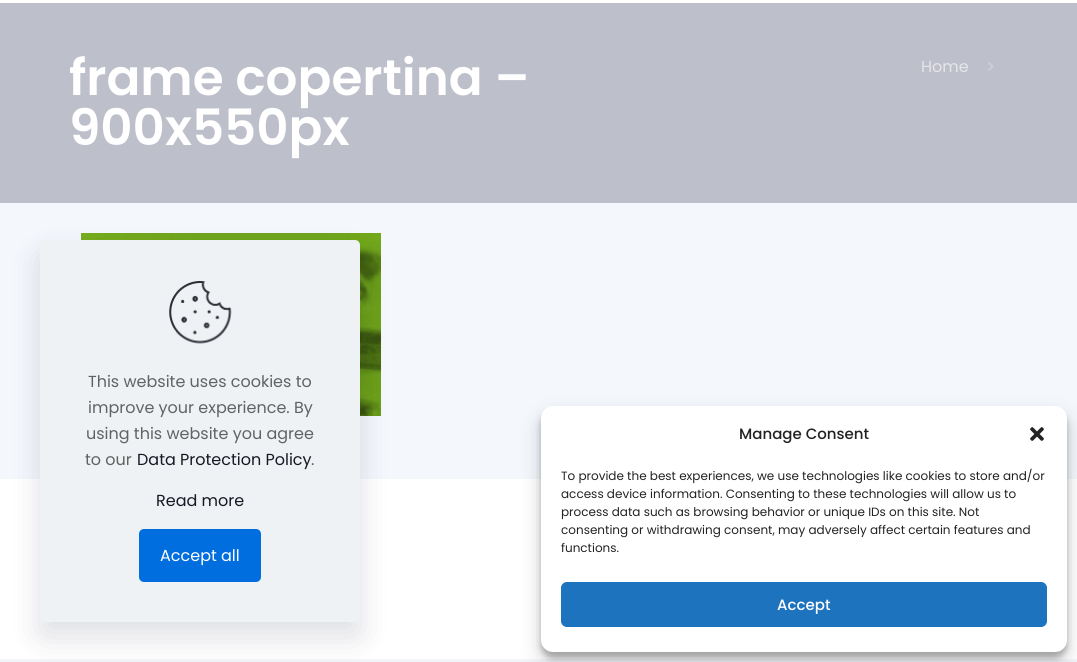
import math
import cairo

surface = cairo.ImageSurface(cairo.FORMAT_RGB24, 1077, 662)
ctx = cairo.Context(surface)
options = cairo.FontOptions()
options.set_hint_metrics(cairo.HINT_METRICS_OFF)
options.set_hint_style(cairo.HINT_STYLE_NONE)
ctx.set_font_options(options)
ctx.set_miter_limit(4)


def set_color(code):
    ctx.set_source_rgb(*(v / 255 for v in bytes.fromhex(code[-6:])))


def draw_text(x, y, s, family, size, color, bold=False, italic=False):
    ctx.select_font_face(family, cairo.FONT_SLANT_ITALIC if italic else cairo.FONT_SLANT_NORMAL, cairo.FONT_WEIGHT_BOLD if bold else cairo.FONT_WEIGHT_NORMAL)
    ctx.set_font_size(size)
    set_color(color)
    ctx.move_to(x, y)
    ctx.show_text(s)


def fill_rect(x, y, w, h, color):
    set_color(color)
    ctx.rectangle(x, y, w, h)
    ctx.fill()


def rounded_rect(x, y, w, h, r):
    ctx.new_sub_path()
    for i, (u, v) in enumerate([(x + w - r, y + h - r), (x + r, y + h - r), (x + r, y + r), (x + w - r, y + r)]):
        ctx.arc(u, v, r, i * math.pi / 2, (i + 1) * math.pi / 2)
    ctx.close_path()


def draw_shadow(x, y, w, h, r, blur, alpha):
    ctx.push_group_with_content(cairo.CONTENT_ALPHA)
    ctx.set_operator(cairo.OPERATOR_SOURCE)
    for i in range(15, -16, -2):
        e = blur * i / 6
        if min(w, h) + 2 * e > 0:
            ctx.set_source_rgba(0, 0, 0, alpha * math.erfc((i - 1) / 8.5) / 2)
            rounded_rect(x - e, y - e, w + 2 * e, h + 2 * e, max(0, min(r + e + blur * .6, min(w, h) / 2 + e)))
            ctx.fill()
    ctx.mask(ctx.pop_group())


def draw_image(path, x, y, w, h):
    ctx.save()
    ctx.set_source_surface(cairo.ImageSurface.create_from_png(path), x, y)
    ctx.rectangle(x, y, w, h)
    ctx.fill()
    ctx.restore()


set_color("#f4f7fc")
ctx.paint()
fill_rect(0, 3, 1077, 200, "#bdbfca")
fill_rect(0, 0, 1077, 3, "#ffffff")
draw_text(69, 95, "frame copertina –", "Poppins SemiBold", 50, "#ffffff")
draw_text(69, 145, "900x550px", "Poppins SemiBold", 50, "#ffffff")
draw_text(921, 72, "Home", "Poppins", 16, "#e5e5ea")
draw_image("assets/img1.png", 988, 62, 6, 9)
draw_image("assets/img2.png", 81, 233, 300, 183)
fill_rect(0, 479, 1077, 180, "#ffffff")
fill_rect(0, 659, 1077, 3, "#f1f4f9")
set_color("#010727")
draw_shadow(40, 255, 320, 382, 5, 15, 0.13)
set_color("#eef2f5")
rounded_rect(40, 240, 320, 382, 5)
ctx.fill()
draw_image("assets/img3.png", 169, 281, 63, 63)
draw_text(88, 387, "This website uses cookies to", "Poppins", 16, "#626262")
draw_text(88, 413, "improve your experience. By", "Poppins", 16, "#626262")
draw_text(86, 439, "using this website you agree", "Poppins", 16, "#626262")
draw_text(85, 465, "to our", "Poppins", 16, "#626262")
draw_text(137, 465, "Data Protection Policy", "Poppins", 16, "#161922")
draw_text(311, 465, ".", "Poppins", 16, "#626262")
draw_text(156, 506, "Read more", "Poppins", 16, "#161922")
set_color("#006edf")
rounded_rect(139, 529, 122, 53, 5)
ctx.fill()
draw_text(160, 561, "Accept all", "Poppins", 16, "#ffffff")
set_color("#000000")
draw_shadow(541, 412, 526, 246, 12, 3, 0.23)
draw_shadow(541, 416, 526, 246, 12, 10, 0.19)
set_color("#ffffff")
rounded_rect(541, 406, 526, 246, 12)
ctx.fill()
draw_text(739, 439, "Manage Consent", "Poppins Medium", 15, "#222222")
draw_image("assets/img4.png", 1030, 427, 14, 14)
draw_text(561, 480, "To provide the best experiences, we use technologies like cookies to store and/or", "Poppins", 12, "#222222")
draw_text(561, 498, "access device information. Consenting to these technologies will allow us to", "Poppins", 12, "#222222")
draw_text(561, 516, "process data such as browsing behavior or unique IDs on this site. Not", "Poppins", 12, "#222222")
draw_text(561, 534, "consenting or withdrawing consent, may adversely affect certain features and", "Poppins", 12, "#222222")
draw_text(561, 552, "functions.", "Poppins", 12, "#222222")
set_color("#1e73be")
rounded_rect(561.5, 582.5, 485, 44, 5.5)
ctx.fill_preserve()
ctx.set_line_width(1)
ctx.stroke()
draw_text(777, 610, "Accept", "Poppins Medium", 15, "#ffffff")
surface.write_to_png("output.png")
